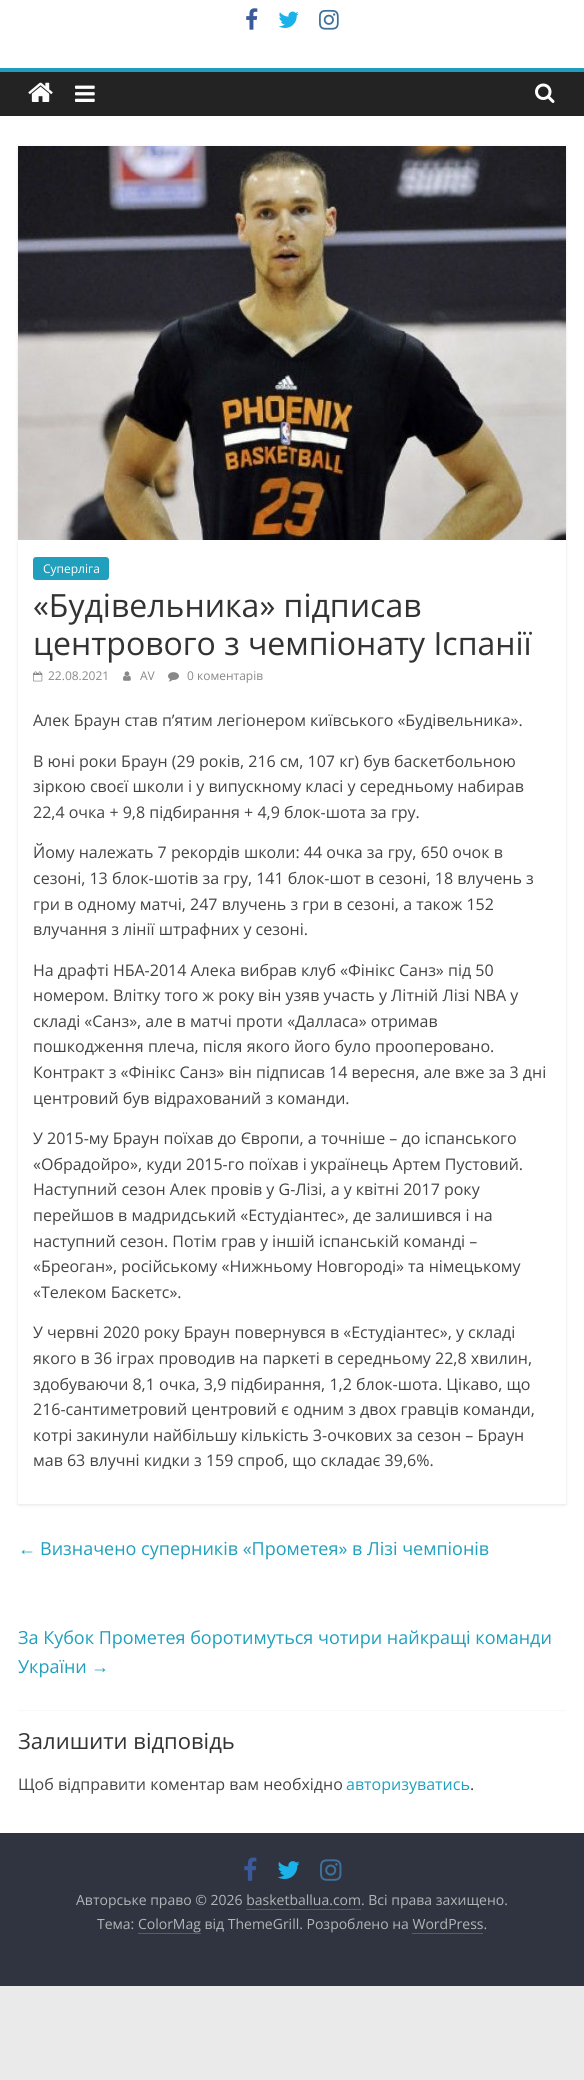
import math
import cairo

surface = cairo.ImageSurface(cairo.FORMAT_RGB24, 584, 2080)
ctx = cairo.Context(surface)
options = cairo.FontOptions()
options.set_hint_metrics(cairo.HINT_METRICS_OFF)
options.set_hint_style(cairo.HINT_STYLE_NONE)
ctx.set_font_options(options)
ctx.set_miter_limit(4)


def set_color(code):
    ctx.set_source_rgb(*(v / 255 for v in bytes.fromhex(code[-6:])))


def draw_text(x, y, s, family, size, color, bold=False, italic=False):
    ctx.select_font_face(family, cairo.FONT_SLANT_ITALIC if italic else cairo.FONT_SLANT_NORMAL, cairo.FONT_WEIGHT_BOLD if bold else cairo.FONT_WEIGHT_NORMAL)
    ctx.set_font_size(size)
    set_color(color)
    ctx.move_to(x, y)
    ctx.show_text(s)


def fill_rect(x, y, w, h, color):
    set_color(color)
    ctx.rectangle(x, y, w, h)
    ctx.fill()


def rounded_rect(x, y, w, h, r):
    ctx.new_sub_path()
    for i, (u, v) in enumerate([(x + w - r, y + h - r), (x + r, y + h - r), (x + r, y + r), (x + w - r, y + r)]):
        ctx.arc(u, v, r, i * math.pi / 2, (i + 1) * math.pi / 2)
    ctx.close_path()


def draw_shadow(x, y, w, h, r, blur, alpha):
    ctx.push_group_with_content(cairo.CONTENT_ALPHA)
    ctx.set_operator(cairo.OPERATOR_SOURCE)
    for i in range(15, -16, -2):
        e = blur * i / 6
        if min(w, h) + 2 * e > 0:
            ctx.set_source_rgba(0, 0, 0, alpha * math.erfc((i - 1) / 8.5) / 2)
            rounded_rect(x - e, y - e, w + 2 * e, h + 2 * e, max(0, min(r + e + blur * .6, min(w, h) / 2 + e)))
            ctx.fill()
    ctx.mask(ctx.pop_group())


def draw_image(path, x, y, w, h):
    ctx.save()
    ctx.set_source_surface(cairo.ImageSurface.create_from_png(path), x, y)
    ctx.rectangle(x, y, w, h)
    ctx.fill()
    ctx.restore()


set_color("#eaeaea")
ctx.paint()
fill_rect(0, 0, 584, 68, "#ffffff")
draw_image("assets/img1.png", 246, 8, 12, 22)
draw_image("assets/img2.png", 278, 11, 21, 17)
draw_image("assets/img3.png", 319, 9, 20, 21)
fill_rect(0, 72, 584, 44, "#232323")
fill_rect(0, 68, 584, 4, "#1e9eba")
draw_image("assets/img4.png", 28, 82, 25, 20)
draw_image("assets/img5.png", 75, 85, 20, 17)
draw_image("assets/img6.png", 535, 83, 20, 20)
fill_rect(0, 116, 584, 1717, "#ffffff")
ctx.save()
ctx.set_fill_rule(cairo.FILL_RULE_EVEN_ODD)
ctx.new_path()
ctx.move_to(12, 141)
ctx.line_to(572, 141)
ctx.line_to(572, 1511)
ctx.line_to(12, 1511)
ctx.close_path()
ctx.move_to(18, 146)
ctx.line_to(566, 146)
ctx.line_to(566, 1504)
ctx.line_to(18, 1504)
ctx.close_path()
ctx.clip()
set_color("#000000")
draw_shadow(18, 147, 548, 1358, 0, 1.5, 0.1)
ctx.restore()
draw_image("assets/img7.png", 18, 146, 548, 394)
set_color("#20a0bd")
rounded_rect(33, 557, 76, 23, 3)
ctx.fill()
draw_text(43, 573, "Суперліга", "Open Sans", 12, "#ffffff")
draw_text(33, 617, "«Будівельника» підписав", "Open Sans", 32, "#333333")
draw_text(33, 655, "центрового з чемпіонату Іспанії", "Open Sans", 32, "#333333")
draw_image("assets/img8.png", 33, 671, 10, 11)
draw_text(48, 680, "22.08.2021", "Open Sans", 12, "#888888")
draw_image("assets/img9.png", 123, 671, 8, 10)
draw_text(140, 680, "AV", "Open Sans", 12, "#888888")
draw_image("assets/img10.png", 168, 672, 11, 10)
draw_text(187, 680, "0 коментарів", "Open Sans", 12, "#888888")
draw_text(33, 726, "Алек Браун став п’ятим легіонером київського «Будівельника».", "Open Sans", 16, "#444444")
draw_text(33, 767, "В юні роки Браун (29 років, 216 см, 107 кг) був баскетбольною", "Open Sans", 16, "#444444")
draw_text(33, 792, "зіркою своєї школи і у випускному класі у середньому набирав", "Open Sans", 16, "#444444")
draw_text(33, 818, "22,4 очка + 9,8 підбирання + 4,9 блок-шота за гру.", "Open Sans", 16, "#444444")
draw_text(33, 858, "Йому належать 7 рекордів школи: 44 очка за гру, 650 очок в", "Open Sans", 16, "#444444")
draw_text(33, 884, "сезоні, 13 блок-шотів за гру, 141 блок-шот в сезоні, 18 влучень з", "Open Sans", 16, "#444444")
draw_text(33, 910, "гри в одному матчі, 247 влучень з гри в сезоні, а також 152", "Open Sans", 16, "#444444")
draw_text(33, 935, "влучання з лінії штрафних у сезоні.", "Open Sans", 16, "#444444")
draw_text(33, 976, "На драфті НБА-2014 Алека вибрав клуб «Фінікс Санз» під 50", "Open Sans", 16, "#444444")
draw_text(33, 1001, "номером. Влітку того ж року він узяв участь у Літній Лізі NBA у", "Open Sans", 16, "#444444")
draw_text(33, 1027, "складі «Санз», але в матчі проти «Далласа» отримав", "Open Sans", 16, "#444444")
draw_text(33, 1052, "пошкодження плеча, після якого його було прооперовано.", "Open Sans", 16, "#444444")
draw_text(33, 1078, "Контракт з «Фінікс Санз» він підписав 14 вересня, але вже за 3 дні", "Open Sans", 16, "#444444")
draw_text(33, 1104, "центровий був відрахований з команди.", "Open Sans", 16, "#444444")
draw_text(33, 1144, "У 2015-му Браун поїхав до Європи, а точніше – до іспанського", "Open Sans", 16, "#444444")
draw_text(33, 1170, "«Обрадойро», куди 2015-го поїхав і українець Артем Пустовий.", "Open Sans", 16, "#444444")
draw_text(33, 1195, "Наступний сезон Алек провів у G-Лізі, а у квітні 2017 року", "Open Sans", 16, "#444444")
draw_text(33, 1221, "перейшов в мадридський «Естудіантес», де залишився і на", "Open Sans", 16, "#444444")
draw_text(33, 1247, "наступний сезон. Потім грав у іншій іспанській команді –", "Open Sans", 16, "#444444")
draw_text(33, 1272, "«Бреоган», російському «Нижньому Новгороді» та німецькому", "Open Sans", 16, "#444444")
draw_text(33, 1298, "«Телеком Баскетс».", "Open Sans", 16, "#444444")
draw_text(33, 1338, "У червні 2020 року Браун повернувся в «Естудіантес», у складі", "Open Sans", 16, "#444444")
draw_text(33, 1364, "якого в 36 іграх проводив на паркеті в середньому 22,8 хвилин,", "Open Sans", 16, "#444444")
draw_text(33, 1390, "здобуваючи 8,1 очка, 3,9 підбирання, 1,2 блок-шота. Цікаво, що", "Open Sans", 16, "#444444")
draw_text(33, 1415, "216-сантиметровий центровий є одним з двох гравців команди,", "Open Sans", 16, "#444444")
draw_text(33, 1441, "котрі закинули найбільшу кількість 3-очкових за сезон – Браун", "Open Sans", 16, "#444444")
draw_text(33, 1466, "мав 63 влучні кидки з 159 спроб, що складає 39,6%.", "Open Sans", 16, "#444444")
draw_text(18, 1555, "←", "Liberation Serif", 18, "#20a0bd")
draw_text(40, 1555, "Визначено суперників «Прометея» в Лізі чемпіонів", "Open Sans", 18, "#20a0bd")
draw_text(18, 1644, "За Кубок Прометея боротимуться чотири найкращі команди", "Open Sans", 18, "#20a0bd")
draw_text(18, 1673, "України", "Open Sans", 18, "#20a0bd")
draw_text(91, 1673, "→", "Liberation Serif", 18, "#20a0bd")
fill_rect(18, 1710, 548, 1, "#f8f8f8")
draw_text(18, 1749, "Залишити відповідь", "Open Sans", 22, "#333333")
draw_text(18, 1790, "Щоб відправити коментар вам необхідно", "Open Sans", 16, "#444444")
draw_text(346, 1790, "авторизуватись", "Open Sans", 16, "#20a0bd")
draw_text(470, 1790, ".", "Open Sans", 16, "#444444")
fill_rect(0, 1833, 584, 153, "#303440")
draw_image("assets/img11.png", 244, 1857, 13, 24)
draw_image("assets/img12.png", 277, 1861, 23, 18)
draw_image("assets/img13.png", 320, 1859, 22, 22)
draw_text(76, 1905, "Авторське право © 2026 basketballua.com. Всі права захищено.", "Open Sans", 14, "#b1b6b6")
fill_rect(246, 1909, 115, 1, "#5a5d62")
draw_text(97, 1929, "Тема: ColorMag від ThemeGrill. Розроблено на WordPress.", "Open Sans", 14, "#b1b6b6")
fill_rect(138, 1933, 63, 1, "#5a5d62")
fill_rect(412, 1933, 71, 1, "#5a5d62")
surface.write_to_png("output.png")
